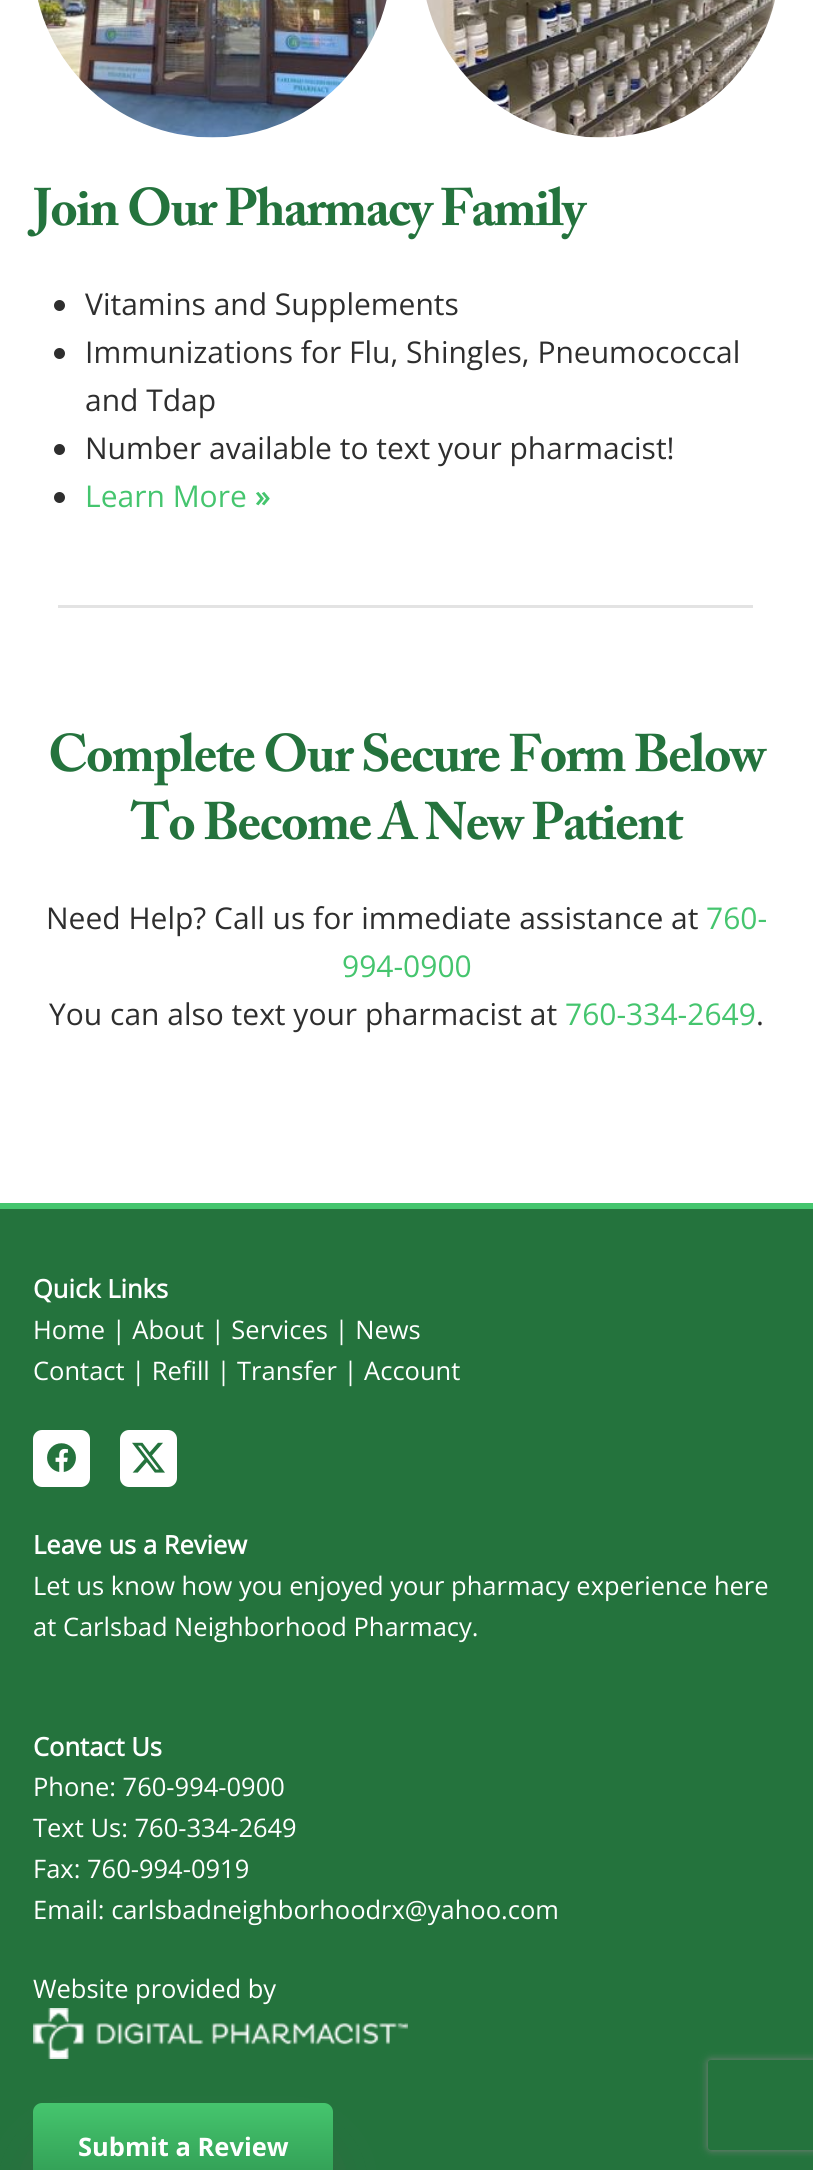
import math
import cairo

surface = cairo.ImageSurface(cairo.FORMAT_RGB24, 813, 2170)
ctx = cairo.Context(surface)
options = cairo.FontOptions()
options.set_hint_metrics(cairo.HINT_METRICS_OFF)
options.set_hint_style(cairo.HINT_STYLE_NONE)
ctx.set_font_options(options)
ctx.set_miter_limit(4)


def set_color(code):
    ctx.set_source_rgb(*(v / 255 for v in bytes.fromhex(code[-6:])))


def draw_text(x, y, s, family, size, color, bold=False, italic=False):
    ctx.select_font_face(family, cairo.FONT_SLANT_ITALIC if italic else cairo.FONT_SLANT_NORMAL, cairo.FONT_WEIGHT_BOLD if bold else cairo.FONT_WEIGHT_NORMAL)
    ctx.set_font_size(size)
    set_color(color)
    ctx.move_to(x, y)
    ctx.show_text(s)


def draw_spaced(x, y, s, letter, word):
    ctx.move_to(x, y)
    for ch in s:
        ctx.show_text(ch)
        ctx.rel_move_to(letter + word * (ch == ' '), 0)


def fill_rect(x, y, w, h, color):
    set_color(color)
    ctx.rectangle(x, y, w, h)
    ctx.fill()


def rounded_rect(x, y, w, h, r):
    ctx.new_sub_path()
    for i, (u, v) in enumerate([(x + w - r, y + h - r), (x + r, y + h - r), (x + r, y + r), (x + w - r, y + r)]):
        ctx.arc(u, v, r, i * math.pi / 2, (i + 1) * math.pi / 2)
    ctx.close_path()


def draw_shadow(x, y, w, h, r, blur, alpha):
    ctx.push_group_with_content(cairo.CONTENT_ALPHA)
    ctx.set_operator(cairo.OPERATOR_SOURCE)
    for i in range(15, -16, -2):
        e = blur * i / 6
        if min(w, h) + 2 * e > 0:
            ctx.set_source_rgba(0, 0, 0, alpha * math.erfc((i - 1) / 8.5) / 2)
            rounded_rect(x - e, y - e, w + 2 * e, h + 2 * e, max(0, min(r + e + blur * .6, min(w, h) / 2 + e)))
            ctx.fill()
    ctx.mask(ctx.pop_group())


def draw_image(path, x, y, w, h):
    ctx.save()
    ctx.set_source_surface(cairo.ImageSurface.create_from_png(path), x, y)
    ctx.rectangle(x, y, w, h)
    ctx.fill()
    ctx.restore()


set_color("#ffffff")
ctx.paint()
draw_image("assets/img1.png", 38, 0, 349, 138)
draw_image("assets/img2.png", 426, 0, 349, 138)
ctx.select_font_face("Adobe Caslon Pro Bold", cairo.FONT_SLANT_NORMAL, cairo.FONT_WEIGHT_BOLD)
ctx.set_font_size(52.5)
set_color("#24733d")
draw_spaced(33, 225, "Join Our Pharmacy Family", -1.6, 0)
set_color("#2e2e2e")
ctx.new_path()
ctx.arc(59.5, 305.5, 5.5, 0, 2 * math.pi)
ctx.fill()
draw_text(85, 315, "Vitamins and Supplements", "Open Sans", 30, "#2e2e2e")
ctx.new_path()
ctx.arc(59.5, 353.5, 5.5, 0, 2 * math.pi)
ctx.fill()
draw_text(85, 363, "Immunizations for Flu, Shingles, Pneumococcal", "Open Sans", 30, "#2e2e2e")
draw_text(85, 411, "and Tdap", "Open Sans", 30, "#2e2e2e")
ctx.new_path()
ctx.arc(59.5, 449.5, 5.5, 0, 2 * math.pi)
ctx.fill()
draw_text(85, 459, "Number available to text your pharmacist!", "Open Sans", 30, "#2e2e2e")
ctx.new_path()
ctx.arc(59.5, 497.5, 5.5, 0, 2 * math.pi)
ctx.fill()
draw_text(85, 507, "Learn More", "Open Sans", 30, "#45c56e")
draw_text(255, 507, "»", "Open Sans", 30, "#45c56e", bold=True)
fill_rect(58, 605, 695, 3, "#e3e3e3")
ctx.select_font_face("Adobe Caslon Pro Bold", cairo.FONT_SLANT_NORMAL, cairo.FONT_WEIGHT_BOLD)
ctx.set_font_size(52.5)
set_color("#24733d")
draw_spaced(48, 771, "Complete Our Secure Form Below", -1.6, 0)
draw_spaced(131, 839, "To Become A New Patient", -1.6, 0)
draw_text(46, 929, "Need Help? Call us for immediate assistance at", "Open Sans", 30, "#2e2e2e")
draw_text(706, 929, "760-", "Open Sans", 30, "#45c56e")
draw_text(342, 977, "994-0900", "Open Sans", 30, "#45c56e")
draw_text(49, 1025, "You can also text your pharmacist at", "Open Sans", 30, "#2e2e2e")
draw_text(565, 1025, "760-334-2649", "Open Sans", 30, "#45c56e")
draw_text(756, 1025, ".", "Open Sans", 30, "#2e2e2e")
fill_rect(0, 1209, 813, 961, "#24733d")
fill_rect(0, 1203, 813, 6, "#45c56e")
draw_text(33, 1298, "Quick Links", "Open Sans", 25.5, "#ffffff", bold=True)
draw_text(33, 1339, "Home | About | Services | News", "Open Sans", 25.5, "#ffffff")
draw_text(33, 1380, "Contact | Refill | Transfer | Account", "Open Sans", 25.5, "#ffffff")
rounded_rect(33, 1430, 57, 57, 9)
ctx.fill()
draw_image("assets/img3.png", 47, 1443, 29, 29)
rounded_rect(120, 1430, 57, 57, 9)
ctx.fill()
draw_image("assets/img4.png", 132, 1442, 33, 31)
draw_text(33, 1554, "Leave us a Review", "Open Sans", 25.5, "#ffffff", bold=True)
draw_text(33, 1595, "Let us know how you enjoyed your pharmacy experience here", "Open Sans", 25.5, "#ffffff")
draw_text(33, 1636, "at Carlsbad Neighborhood Pharmacy.", "Open Sans", 25.5, "#ffffff")
draw_text(33, 1756, "Contact Us", "Open Sans", 25.5, "#ffffff", bold=True)
draw_text(33, 1796, "Phone: 760-994-0900", "Open Sans", 25.5, "#ffffff")
draw_text(33, 1837, "Text Us: 760-334-2649", "Open Sans", 25.5, "#ffffff")
draw_text(33, 1878, "Fax: 760-994-0919", "Open Sans", 25.5, "#ffffff")
draw_text(33, 1919, "Email: carlsbadneighborhoodrx@yahoo.com", "Open Sans", 25.5, "#ffffff")
draw_text(33, 1998, "Website provided by", "Open Sans", 25.5, "#ffffff")
draw_image("assets/img5.png", 33, 2008, 375, 51)
set_color("#555555")
draw_shadow(63, 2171, 240, 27, 0, 30, 1)
gradient = cairo.LinearGradient(183, 2103, 183, 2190)
gradient.add_color_stop_rgba(0, 0.271, 0.773, 0.431, 1)
gradient.add_color_stop_rgba(1, 0.184, 0.596, 0.318, 1)
ctx.set_source(gradient)
rounded_rect(33, 2103, 300, 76, 9)
ctx.fill()
draw_text(78, 2156, "Submit a Review", "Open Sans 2", 25.5, "#ffffff", bold=True)
ctx.save()
ctx.set_fill_rule(cairo.FILL_RULE_EVEN_ODD)
ctx.new_path()
ctx.move_to(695, 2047)
ctx.line_to(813, 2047)
ctx.line_to(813, 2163)
ctx.line_to(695, 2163)
ctx.close_path()
ctx.move_to(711, 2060)
ctx.line_to(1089, 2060)
ctx.curve_to(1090.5, 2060, 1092, 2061.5, 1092, 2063)
ctx.line_to(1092, 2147)
ctx.curve_to(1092, 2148.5, 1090.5, 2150, 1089, 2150)
ctx.line_to(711, 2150)
ctx.curve_to(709.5, 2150, 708, 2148.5, 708, 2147)
ctx.line_to(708, 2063)
ctx.curve_to(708, 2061.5, 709.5, 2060, 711, 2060)
ctx.close_path()
ctx.clip()
set_color("#808080")
draw_shadow(708, 2060, 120, 90, 3, 4, 1)
ctx.restore()
surface.write_to_png("output.png")
